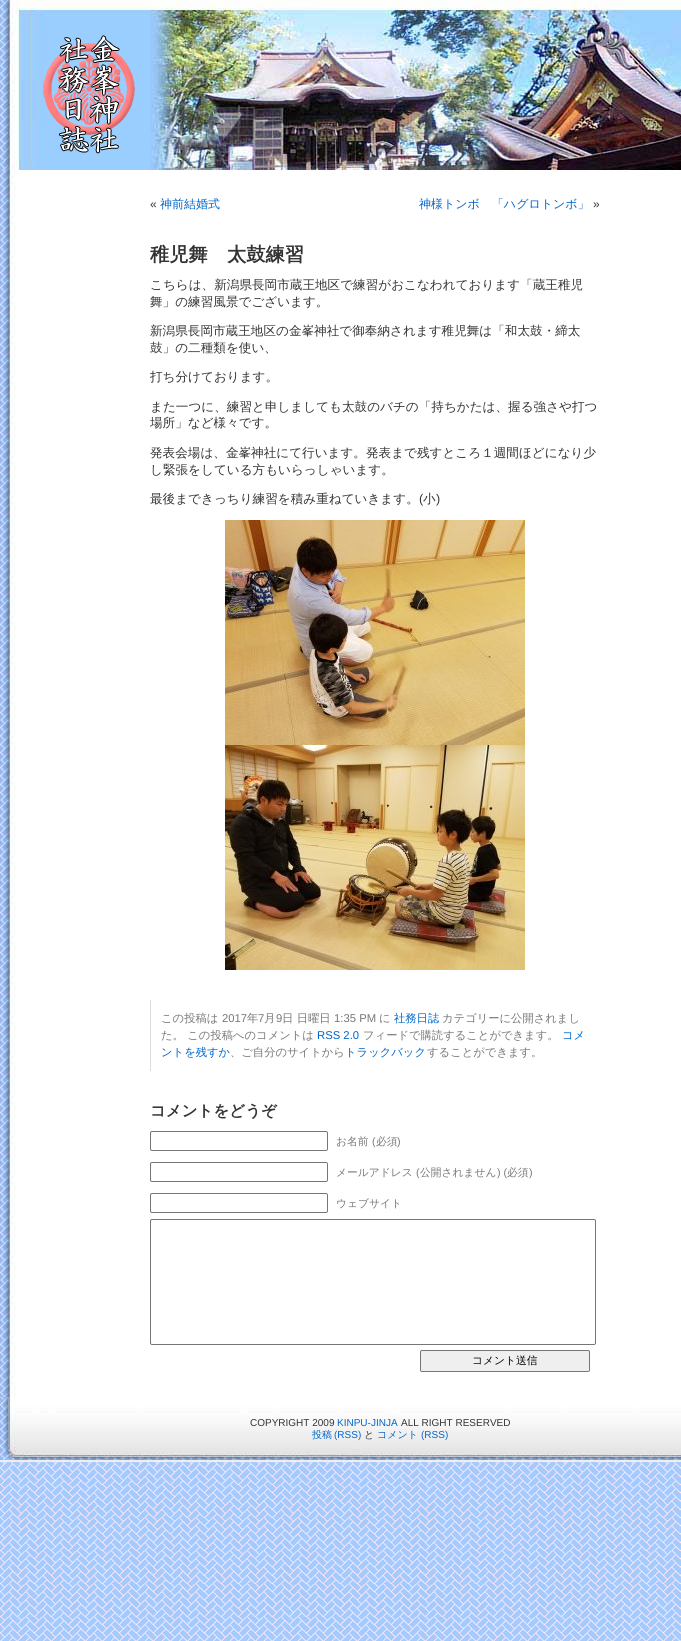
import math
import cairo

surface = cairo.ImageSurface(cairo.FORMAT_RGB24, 681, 1641)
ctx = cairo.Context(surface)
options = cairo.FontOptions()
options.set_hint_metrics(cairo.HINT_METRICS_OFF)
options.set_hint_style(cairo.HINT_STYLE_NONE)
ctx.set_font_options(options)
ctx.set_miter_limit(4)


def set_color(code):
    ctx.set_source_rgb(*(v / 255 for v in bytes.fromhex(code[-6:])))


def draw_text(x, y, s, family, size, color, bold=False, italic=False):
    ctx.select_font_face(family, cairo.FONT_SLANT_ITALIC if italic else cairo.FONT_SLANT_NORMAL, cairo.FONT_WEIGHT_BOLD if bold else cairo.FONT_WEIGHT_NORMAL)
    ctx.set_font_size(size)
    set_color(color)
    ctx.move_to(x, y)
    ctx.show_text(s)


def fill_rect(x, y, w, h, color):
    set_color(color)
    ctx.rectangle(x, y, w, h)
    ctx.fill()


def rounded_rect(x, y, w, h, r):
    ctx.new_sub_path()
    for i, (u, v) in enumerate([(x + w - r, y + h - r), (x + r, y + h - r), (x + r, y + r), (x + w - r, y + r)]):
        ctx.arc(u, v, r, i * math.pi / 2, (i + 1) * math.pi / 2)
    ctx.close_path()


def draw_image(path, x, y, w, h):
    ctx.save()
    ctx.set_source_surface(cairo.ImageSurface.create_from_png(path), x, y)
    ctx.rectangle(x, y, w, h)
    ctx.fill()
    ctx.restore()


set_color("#ffffff")
ctx.paint()
draw_image("assets/img1.png", 0, 1462, 681, 179)
draw_image("assets/img2.png", 0, 170, 681, 1227)
draw_image("assets/img3.png", 0, 0, 681, 170)
draw_image("assets/img4.png", 30, 0, 120, 170)
draw_text(150, 208, "«", "Liberation Sans", 12, "#333333")
draw_text(160, 208, "神前結婚式", "WenQuanYi Zen Hei Medium", 12, "#0066cc")
draw_text(419, 208, "神様トンボ　「ハグロトンボ」", "WenQuanYi Zen Hei Medium", 12, "#0066cc")
draw_text(593, 208, "»", "Liberation Sans", 12, "#333333")
draw_text(150, 261, "稚児舞　太鼓練習", "WenQuanYi Zen Hei", 19.25, "#333333", bold=True)
draw_text(150, 289, "こちらは、新潟県長岡市蔵王地区で練習がおこなわれております「蔵王稚児", "WenQuanYi Zen Hei Medium", 12.6, "#333333")
draw_text(150, 306, "舞」の練習風景でございます。", "WenQuanYi Zen Hei Medium", 12.6, "#333333")
draw_text(150, 335, "新潟県長岡市蔵王地区の金峯神社で御奉納されます稚児舞は「和太鼓・締太", "WenQuanYi Zen Hei Medium", 12.6, "#333333")
draw_text(150, 352, "鼓」の二種類を使い、", "WenQuanYi Zen Hei Medium", 12.6, "#333333")
draw_text(150, 381, "打ち分けております。", "WenQuanYi Zen Hei Medium", 12.6, "#333333")
draw_text(150, 411, "また一つに、練習と申しましても太鼓のバチの「持ちかたは、握る強さや打つ", "WenQuanYi Zen Hei Medium", 12.6, "#333333")
draw_text(150, 427, "場所」など様々です。", "WenQuanYi Zen Hei Medium", 12.6, "#333333")
draw_text(150, 457, "発表会場は、金峯神社にて行います。発表まで残すところ１週間ほどになり少", "WenQuanYi Zen Hei Medium", 12.6, "#333333")
draw_text(150, 474, "し緊張をしている方もいらっしゃいます。", "WenQuanYi Zen Hei Medium", 12.6, "#333333")
draw_text(150, 503, "最後まできっちり練習を積み重ねていきます。", "WenQuanYi Zen Hei Medium", 12.6, "#333333")
draw_text(419, 503, "(", "Liberation Sans", 12.6, "#333333")
draw_text(423, 503, "小", "WenQuanYi Zen Hei Medium", 12.6, "#333333")
draw_text(436, 503, ")", "Liberation Sans", 12.6, "#333333")
draw_image("assets/img5.png", 225, 520, 300, 225)
draw_image("assets/img6.png", 225, 745, 300, 225)
fill_rect(150, 1000, 1, 71, "#dddddd")
draw_text(161, 1022, "この投稿は", "WenQuanYi Zen Hei Medium", 11.3, "#777777")
draw_text(222, 1022, "2017", "Liberation Sans", 11.3, "#777777")
draw_text(247, 1022, "年", "WenQuanYi Zen Hei Medium", 11.3, "#777777")
draw_text(258, 1022, "7", "Liberation Sans", 11.3, "#777777")
draw_text(264, 1022, "月", "WenQuanYi Zen Hei Medium", 11.3, "#777777")
draw_text(276, 1022, "9", "Liberation Sans", 11.3, "#777777")
draw_text(282, 1022, "日 日曜日", "WenQuanYi Zen Hei Medium", 11.3, "#777777")
draw_text(334, 1022, "1:35 PM", "Liberation Sans", 11.3, "#777777")
draw_text(379, 1022, "に", "WenQuanYi Zen Hei Medium", 11.3, "#777777")
draw_text(394, 1022, "社務日誌", "WenQuanYi Zen Hei Medium", 11.3, "#0066cc")
draw_text(442, 1022, "カテゴリーに公開されまし", "WenQuanYi Zen Hei Medium", 11.3, "#777777")
draw_text(161, 1039, "た。 この投稿へのコメントは", "WenQuanYi Zen Hei Medium", 11.3, "#777777")
draw_text(317, 1039, "RSS 2.0", "Liberation Sans", 11.3, "#0066cc")
draw_text(363, 1039, "フィードで購読することができます。", "WenQuanYi Zen Hei Medium", 11.3, "#777777")
draw_text(562, 1039, "コメ", "WenQuanYi Zen Hei Medium", 11.3, "#0066cc")
draw_text(161, 1056, "ントを残すか", "WenQuanYi Zen Hei Medium", 11.3, "#0066cc")
draw_text(230, 1056, "、ご自分のサイトから", "WenQuanYi Zen Hei Medium", 11.3, "#777777")
draw_text(345, 1056, "トラックバック", "WenQuanYi Zen Hei Medium", 11.3, "#0066cc")
draw_text(427, 1056, "することができます。", "WenQuanYi Zen Hei Medium", 11.3, "#777777")
draw_text(150, 1116, "コメントをどうぞ", "WenQuanYi Zen Hei", 15.5, "#333333", bold=True)
rounded_rect(150.5, 1131.5, 177, 19, 1.5)
set_color("#767676")
ctx.set_line_width(1)
ctx.stroke()
draw_text(336, 1145, "お名前", "WenQuanYi Zen Hei Medium", 10.75, "#777777")
draw_text(372, 1145, "(", "Liberation Sans", 10.75, "#777777")
draw_text(376, 1145, "必須", "WenQuanYi Zen Hei Medium", 10.75, "#777777")
draw_text(397, 1145, ")", "Liberation Sans", 10.75, "#777777")
rounded_rect(150.5, 1162.5, 177, 19, 1.5)
set_color("#767676")
ctx.stroke()
draw_text(336, 1176, "メールアドレス", "WenQuanYi Zen Hei Medium", 10.75, "#777777")
draw_text(416, 1176, "(", "Liberation Sans", 10.75, "#777777")
draw_text(420, 1176, "公開されません", "WenQuanYi Zen Hei Medium", 10.75, "#777777")
draw_text(497, 1176, ") (", "Liberation Sans", 10.75, "#777777")
draw_text(507, 1176, "必須", "WenQuanYi Zen Hei Medium", 10.75, "#777777")
draw_text(529, 1176, ")", "Liberation Sans", 10.75, "#777777")
rounded_rect(150.5, 1193.5, 177, 19, 1.5)
set_color("#767676")
ctx.stroke()
draw_text(336, 1207, "ウェブサイト", "WenQuanYi Zen Hei Medium", 10.75, "#777777")
rounded_rect(150.5, 1219.5, 445, 125, 1.5)
set_color("#767676")
ctx.stroke()
set_color("#efefef")
rounded_rect(420.5, 1350.5, 169, 21, 1.5)
ctx.fill_preserve()
set_color("#767676")
ctx.stroke()
draw_text(472, 1364, "コメント送信", "WenQuanYi Zen Hei Medium", 10.75, "#000000")
fill_rect(0, 1460, 681, 2, "#eeeeee")
draw_image("assets/img7.png", 0, 1397, 681, 63)
draw_text(250, 1426, "COPYRIGHT 2009", "Liberation Sans", 10, "#333333")
draw_text(337, 1426, "KINPU-JINJA", "Liberation Sans", 10, "#0066cc")
draw_text(401, 1426, "ALL RIGHT RESERVED", "Liberation Sans", 10, "#333333")
draw_text(312, 1438, "投稿", "WenQuanYi Zen Hei Medium", 10, "#0066cc")
draw_text(334, 1438, "(RSS)", "Liberation Sans", 10, "#0066cc")
draw_text(364, 1438, "と", "WenQuanYi Zen Hei Medium", 10, "#333333")
draw_text(377, 1438, "コメント", "WenQuanYi Zen Hei Medium", 10, "#0066cc")
draw_text(421, 1438, "(RSS)", "Liberation Sans", 10, "#0066cc")
surface.write_to_png("output.png")
